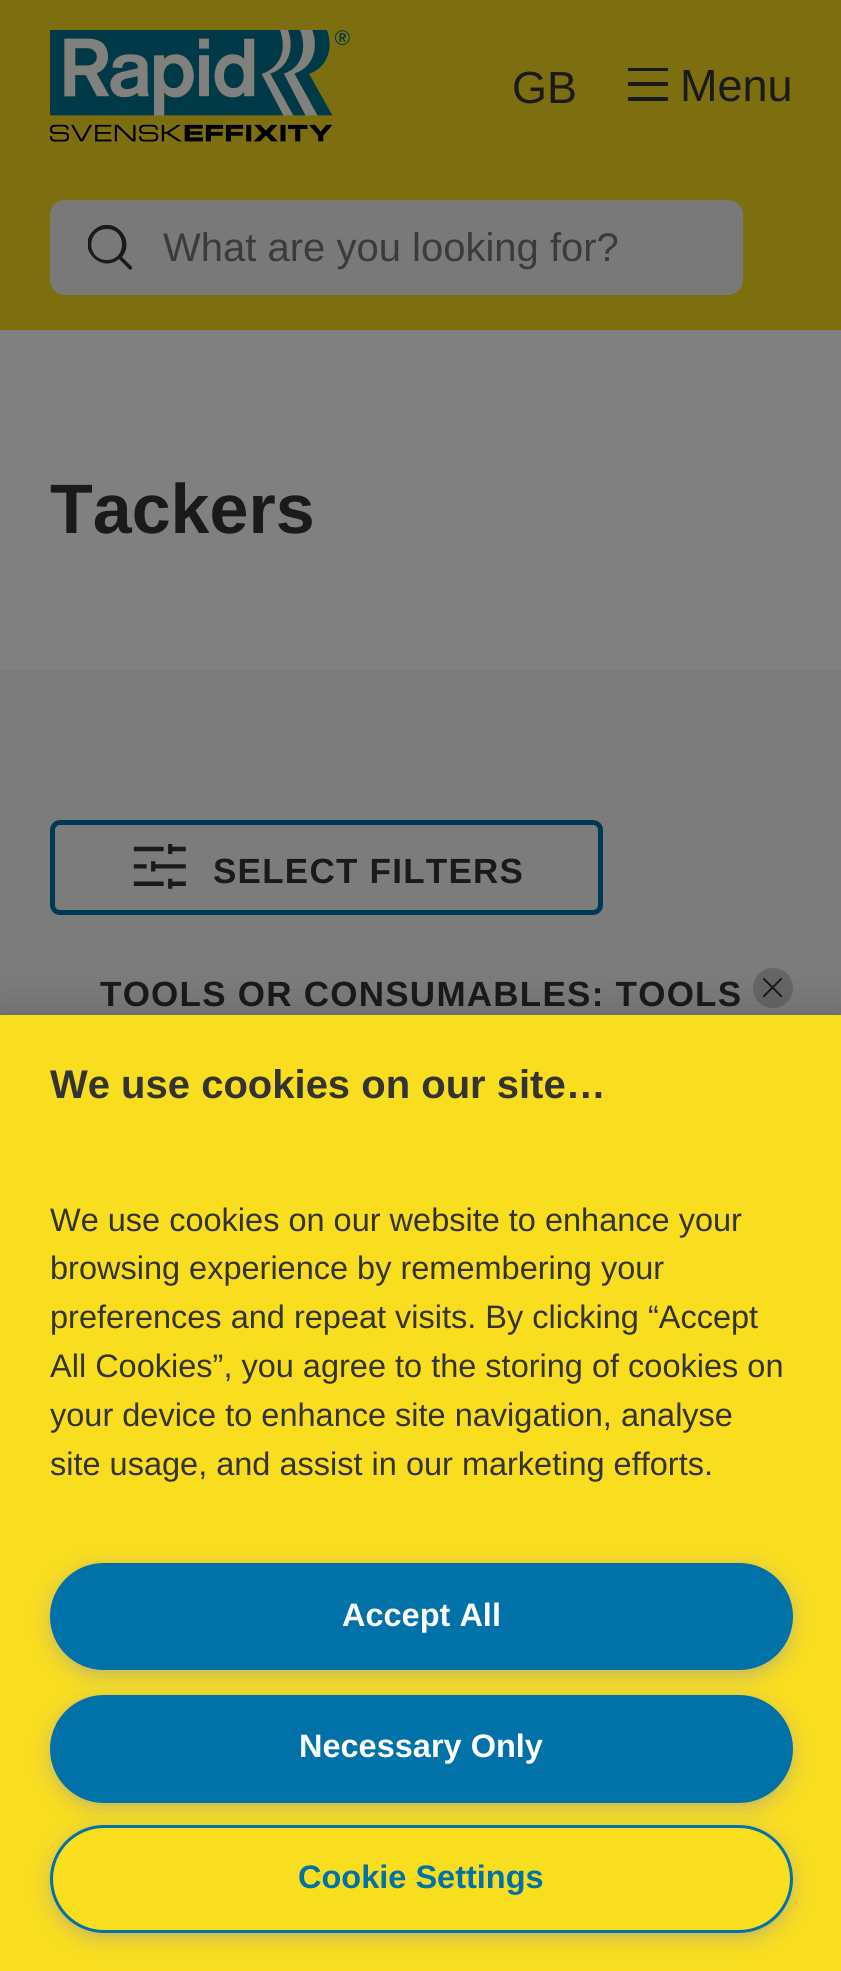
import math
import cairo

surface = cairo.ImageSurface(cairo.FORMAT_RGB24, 841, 1971)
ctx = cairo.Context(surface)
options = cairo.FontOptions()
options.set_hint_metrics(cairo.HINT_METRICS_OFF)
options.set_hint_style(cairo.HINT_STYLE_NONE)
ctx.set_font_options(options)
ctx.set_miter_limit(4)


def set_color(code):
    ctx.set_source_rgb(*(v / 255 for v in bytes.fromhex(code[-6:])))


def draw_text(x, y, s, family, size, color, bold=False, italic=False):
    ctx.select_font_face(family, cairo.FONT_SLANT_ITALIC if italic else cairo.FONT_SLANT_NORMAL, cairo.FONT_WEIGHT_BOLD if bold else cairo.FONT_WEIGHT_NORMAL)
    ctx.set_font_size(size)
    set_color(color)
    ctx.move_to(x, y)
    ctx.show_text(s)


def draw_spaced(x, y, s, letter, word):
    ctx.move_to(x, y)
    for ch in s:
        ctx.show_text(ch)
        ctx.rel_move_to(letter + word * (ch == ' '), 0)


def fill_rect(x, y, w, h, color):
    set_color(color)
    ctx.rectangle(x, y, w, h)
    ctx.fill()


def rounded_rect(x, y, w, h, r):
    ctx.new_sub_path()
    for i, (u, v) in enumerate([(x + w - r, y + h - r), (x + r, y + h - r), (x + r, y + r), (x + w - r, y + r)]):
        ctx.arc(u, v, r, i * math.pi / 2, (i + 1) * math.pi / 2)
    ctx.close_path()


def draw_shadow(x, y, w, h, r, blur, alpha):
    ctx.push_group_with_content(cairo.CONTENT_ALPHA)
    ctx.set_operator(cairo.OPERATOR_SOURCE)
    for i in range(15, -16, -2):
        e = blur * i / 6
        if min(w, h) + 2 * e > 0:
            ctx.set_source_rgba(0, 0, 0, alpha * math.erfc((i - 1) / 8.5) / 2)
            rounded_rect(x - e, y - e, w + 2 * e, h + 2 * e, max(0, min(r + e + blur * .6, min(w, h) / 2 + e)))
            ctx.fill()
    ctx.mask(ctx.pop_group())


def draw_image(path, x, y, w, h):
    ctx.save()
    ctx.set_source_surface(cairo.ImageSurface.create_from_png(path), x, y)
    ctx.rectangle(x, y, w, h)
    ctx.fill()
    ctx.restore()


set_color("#808080")
ctx.paint()
fill_rect(0, 0, 841, 330, "#7d6f10")
draw_image("assets/img1.png", 50, 30, 300, 112)
fill_rect(628, 82, 40, 4, "#1a1a1a")
fill_rect(628, 68, 40, 3, "#1a1a1a")
fill_rect(628, 97, 40, 4, "#1a1a1a")
draw_text(680, 101, "Menu", "Liberation Sans", 45, "#1a1a1a")
draw_text(512, 103, "GB", "Liberation Sans", 45, "#1a1a1a")
set_color("#797979")
rounded_rect(50, 200, 693, 95, 15)
ctx.fill()
ctx.save()
ctx.rectangle(88, 225, 44, 45)
ctx.clip()
set_color("#1a1a1a")
ctx.set_fill_rule(cairo.FILL_RULE_EVEN_ODD)
ctx.new_path()
ctx.move_to(119, 259)
ctx.line_to(130, 270)
ctx.line_to(133, 268)
ctx.line_to(122, 257)
ctx.curve_to(137, 238, 111, 213, 93, 231)
ctx.curve_to(76, 248, 101, 274, 119, 259)
ctx.close_path()
ctx.move_to(107, 229)
ctx.curve_to(127, 229, 127, 260, 107, 260)
ctx.curve_to(86, 260, 86, 229, 107, 229)
ctx.close_path()
ctx.fill()
ctx.restore()
draw_text(163, 261, "What are you looking for?", "Liberation Sans", 40, "#3b3b3b")
draw_text(50, 533, "Tackers", "Liberation Sans", 70, "#1a1a1a", bold=True)
fill_rect(0, 670, 841, 345, "#7c7c7c")
rounded_rect(52.5, 822.5, 548, 90, 7.5)
set_color("#003954")
ctx.set_line_width(5)
ctx.stroke()
draw_image("assets/img2.png", 133, 844, 53, 45)
ctx.set_font_size(35)
set_color("#1a1a1a")
draw_spaced(213, 883, "SELECT FILTERS", 1.25, 0)
set_color("#666666")
ctx.new_path()
ctx.arc(773, 988, 20, 0, 2 * math.pi)
ctx.fill()
set_color("#1a1a1a")
draw_spaced(100, 1006, "TOOLS OR CONSUMABLES: TOOLS", 1.25, 0)
draw_image("assets/img3.png", 763, 978, 20, 20)
set_color("#000000")
draw_shadow(0, 1015, 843, 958, 0, 22.5, 0.2)
fill_rect(0, 1015, 841, 956, "#f9dd1f")
draw_text(50, 1098, "We use cookies on our site…", "Liberation Sans", 40, "#333333", bold=True)
draw_text(50, 1231, "We use cookies on our website to enhance your", "Liberation Sans", 32.5, "#333333")
draw_text(50, 1279, "browsing experience by remembering your", "Liberation Sans", 32.5, "#333333")
draw_text(50, 1328, "preferences and repeat visits. By clicking “Accept", "Liberation Sans", 32.5, "#333333")
draw_text(50, 1377, "All Cookies”, you agree to the storing of cookies on", "Liberation Sans", 32.5, "#333333")
draw_text(50, 1426, "your device to enhance site navigation, analyse", "Liberation Sans", 32.5, "#333333")
draw_text(50, 1475, "site usage, and assist in our marketing efforts.", "Liberation Sans", 32.5, "#333333")
set_color("#999999")
draw_shadow(58, 1575, 727, 93, 46.5, 12.5, 1)
set_color("#0072a8")
rounded_rect(51.5, 1564.5, 740, 104, 52)
ctx.fill_preserve()
ctx.set_line_width(3)
ctx.stroke()
draw_text(342, 1626, "Accept All", "Liberation Sans", 32.5, "#ffffff", bold=True)
set_color("#999999")
draw_shadow(58, 1708, 727, 92, 46, 12.5, 1)
set_color("#0072a8")
rounded_rect(51.5, 1696.5, 740, 105, 52.5)
ctx.fill_preserve()
ctx.stroke()
draw_text(299, 1757, "Necessary Only", "Liberation Sans", 32.5, "#ffffff", bold=True)
set_color("#999999")
draw_shadow(58, 1838, 727, 92, 46, 12.5, 1)
set_color("#f9dd1f")
rounded_rect(51.5, 1826.5, 740, 105, 52.5)
ctx.fill_preserve()
set_color("#0072a8")
ctx.stroke()
draw_text(298, 1888, "Cookie Settings", "Liberation Sans", 32.5, "#0072a8", bold=True)
surface.write_to_png("output.png")
